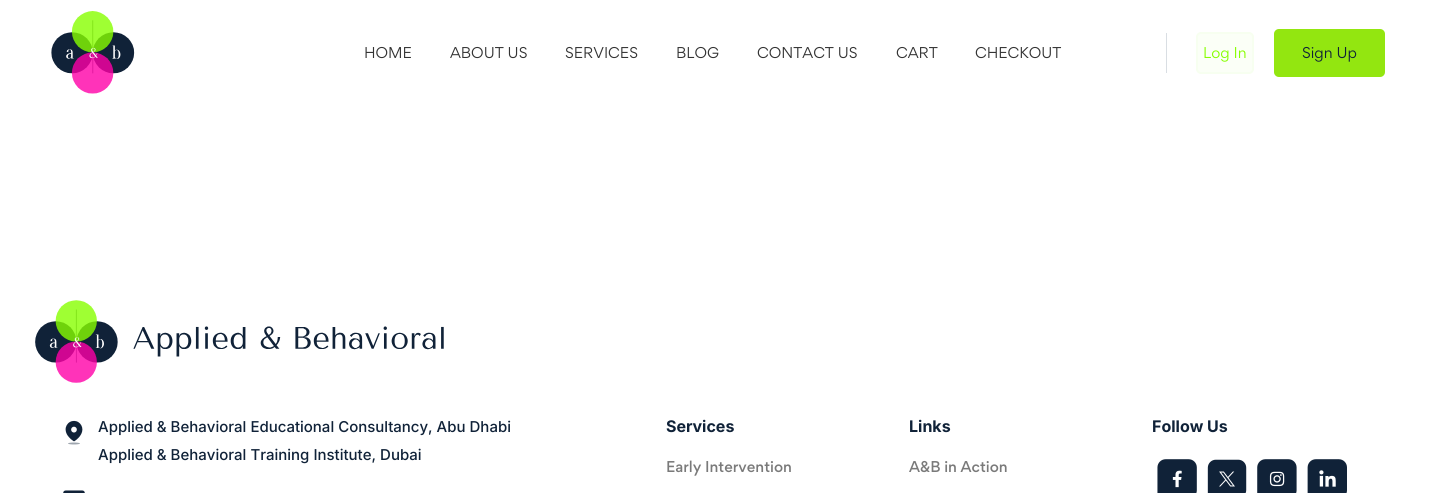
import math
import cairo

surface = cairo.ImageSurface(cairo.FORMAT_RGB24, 1435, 493)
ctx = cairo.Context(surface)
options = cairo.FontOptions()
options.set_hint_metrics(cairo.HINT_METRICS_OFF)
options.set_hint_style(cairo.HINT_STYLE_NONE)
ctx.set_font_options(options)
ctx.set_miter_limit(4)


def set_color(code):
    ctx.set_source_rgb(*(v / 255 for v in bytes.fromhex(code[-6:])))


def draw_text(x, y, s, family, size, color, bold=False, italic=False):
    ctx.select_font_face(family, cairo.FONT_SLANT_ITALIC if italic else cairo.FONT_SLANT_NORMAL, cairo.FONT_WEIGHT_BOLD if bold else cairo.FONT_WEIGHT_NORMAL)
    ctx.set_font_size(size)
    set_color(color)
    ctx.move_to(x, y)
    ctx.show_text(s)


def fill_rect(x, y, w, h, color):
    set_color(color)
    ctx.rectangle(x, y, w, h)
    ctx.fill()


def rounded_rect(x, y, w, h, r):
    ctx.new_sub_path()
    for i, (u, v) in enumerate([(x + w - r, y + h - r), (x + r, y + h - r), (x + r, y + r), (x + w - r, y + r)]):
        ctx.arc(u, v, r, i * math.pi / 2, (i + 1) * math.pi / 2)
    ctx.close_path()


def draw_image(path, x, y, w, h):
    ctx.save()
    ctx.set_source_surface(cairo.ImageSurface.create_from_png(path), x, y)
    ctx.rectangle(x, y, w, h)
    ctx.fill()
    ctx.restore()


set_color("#ffffff")
ctx.paint()
draw_image("assets/img1.png", 51, 11, 84, 83)
draw_text(364, 58, "HOME", "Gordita", 14, "#333333")
draw_text(450, 58, "ABOUT US", "Gordita", 14, "#333333")
draw_text(565, 58, "SERVICES", "Gordita", 14, "#333333")
draw_text(676, 58, "BLOG", "Gordita", 14, "#333333")
draw_text(757, 58, "CONTACT US", "Gordita", 14, "#333333")
draw_text(896, 58, "CART", "Gordita", 14, "#333333")
draw_text(975, 58, "CHECKOUT", "Gordita", 14, "#333333")
fill_rect(1166, 33, 1, 40, "#d9dee3")
set_color("#fbfff7")
rounded_rect(1196, 32, 58, 42, 5)
ctx.fill()
rounded_rect(1197, 33, 56, 40, 4)
ctx.set_source_rgba(0.808, 1, 0.588, 0.08)
ctx.stroke()
draw_text(1203, 58, "Log In", "Gordita", 14, "#87ff00")
rounded_rect(1274, 29, 111, 48, 5)
ctx.fill()
ctx.set_source_rgba(1, 0, 0.659, 0.1)
rounded_rect(1274, 29, 111, 48, 5)
ctx.fill()
draw_text(1302, 58, "Sign Up", "Gordita", 14, "#102238")
draw_image("assets/img2.png", 35, 300, 409, 83)
draw_image("assets/img3.png", 65, 420, 18, 25)
draw_text(98, 432, "Applied & Behavioral Educational Consultancy, Abu Dhabi", "Inter Medium", 15, "#102238")
draw_text(98, 460, "Applied & Behavioral Training Institute, Dubai", "Inter Medium", 15, "#102238")
draw_image("assets/img4.png", 63, 490, 22, 3)
draw_text(666, 432, "Services", "Inter", 16, "#102238", bold=True)
draw_text(666, 472, "Early Intervention", "Gordita Medium", 14, "#7a7a7a")
draw_text(909, 432, "Links", "Inter", 16, "#102238", bold=True)
draw_text(909, 472, "A&B in Action", "Gordita Medium", 14, "#7a7a7a")
draw_text(1152, 432, "Follow Us", "Inter", 16, "#102238", bold=True)
draw_image("assets/img5.png", 1157, 459, 40, 34)
draw_image("assets/img6.png", 1207, 459, 40, 34)
draw_image("assets/img7.png", 1257, 459, 40, 34)
draw_image("assets/img8.png", 1307, 459, 40, 34)
surface.write_to_png("output.png")
